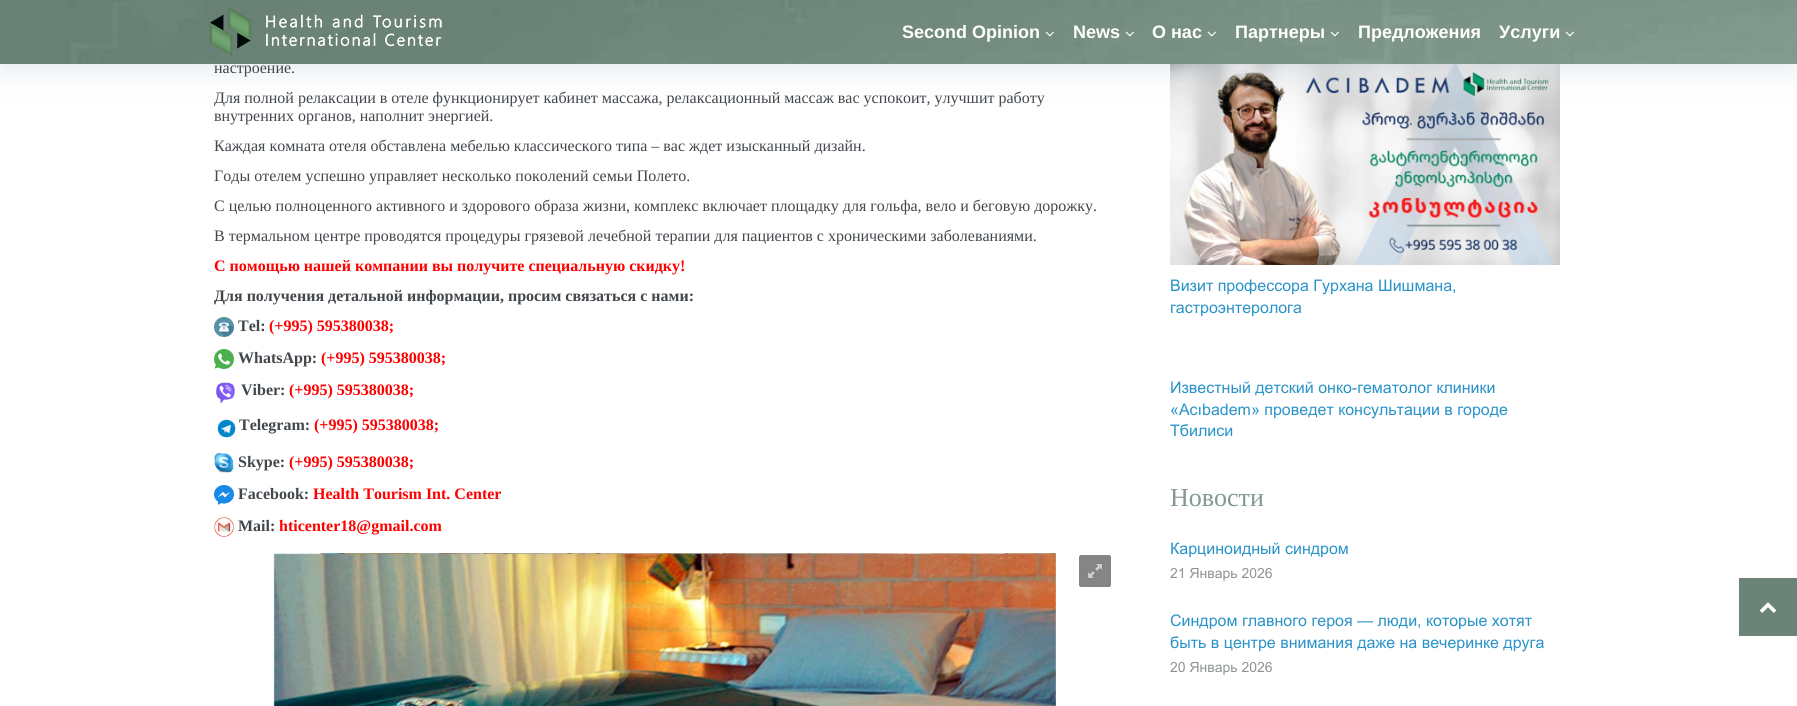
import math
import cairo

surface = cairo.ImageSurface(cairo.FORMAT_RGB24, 1797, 706)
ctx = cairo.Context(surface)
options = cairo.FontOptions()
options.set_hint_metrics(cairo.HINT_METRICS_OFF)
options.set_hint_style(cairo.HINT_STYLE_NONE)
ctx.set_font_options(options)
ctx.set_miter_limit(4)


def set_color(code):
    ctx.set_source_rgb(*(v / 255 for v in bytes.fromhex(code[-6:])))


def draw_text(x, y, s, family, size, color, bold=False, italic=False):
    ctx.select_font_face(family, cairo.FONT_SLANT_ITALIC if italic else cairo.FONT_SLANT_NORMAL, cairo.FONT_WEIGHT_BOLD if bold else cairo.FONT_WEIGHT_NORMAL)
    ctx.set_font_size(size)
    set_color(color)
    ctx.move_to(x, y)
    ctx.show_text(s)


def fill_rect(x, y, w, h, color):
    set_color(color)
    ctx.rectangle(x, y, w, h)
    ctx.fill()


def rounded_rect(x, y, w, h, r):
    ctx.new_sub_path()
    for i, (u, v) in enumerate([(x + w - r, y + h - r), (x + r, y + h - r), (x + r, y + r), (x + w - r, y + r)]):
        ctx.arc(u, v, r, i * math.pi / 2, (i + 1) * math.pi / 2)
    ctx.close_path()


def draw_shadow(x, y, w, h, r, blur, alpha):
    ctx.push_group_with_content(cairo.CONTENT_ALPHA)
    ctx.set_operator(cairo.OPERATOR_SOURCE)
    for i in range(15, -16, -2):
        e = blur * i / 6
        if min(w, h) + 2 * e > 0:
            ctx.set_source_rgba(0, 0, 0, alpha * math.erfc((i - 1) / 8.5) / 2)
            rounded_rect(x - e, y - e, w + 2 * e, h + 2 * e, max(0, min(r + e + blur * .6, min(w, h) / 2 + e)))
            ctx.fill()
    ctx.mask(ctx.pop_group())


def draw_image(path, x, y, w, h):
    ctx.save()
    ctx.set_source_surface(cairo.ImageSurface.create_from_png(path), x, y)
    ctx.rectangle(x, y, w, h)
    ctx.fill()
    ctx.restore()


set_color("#ffffff")
ctx.paint()
draw_image("assets/img17.png", 1170, 64, 390, 201)
set_color("#677a8d")
draw_shadow(0, 5, 1797, 64, 0, 16, 0.17)
draw_image("assets/img1.png", 0, 0, 1797, 64)
draw_image("assets/img2.png", 210, 7, 232, 49)
draw_text(902, 38, "Second Opinion", "Liberation Sans", 18, "#ffffff", bold=True)
draw_image("assets/img3.png", 1045, 31, 9, 6)
draw_text(1073, 38, "News", "Liberation Sans", 18, "#ffffff", bold=True)
draw_image("assets/img4.png", 1125, 31, 9, 6)
draw_text(1152, 38, "О нас", "Liberation Sans", 18, "#ffffff", bold=True)
draw_image("assets/img5.png", 1207, 31, 9, 6)
draw_text(1235, 38, "Партнеры", "Liberation Sans", 18, "#ffffff", bold=True)
draw_image("assets/img6.png", 1330, 31, 9, 6)
draw_text(1358, 38, "Предложения", "Liberation Sans", 18, "#ffffff", bold=True)
draw_text(1499, 38, "Услуги", "Liberation Sans", 18, "#ffffff", bold=True)
draw_image("assets/img7.png", 1565, 31, 9, 6)
draw_text(214, 73, "настроение.", "Liberation Serif", 16, "#42474c")
draw_text(214, 103, "Для полной релаксации в отеле функционирует кабинет массажа, релаксационный массаж вас успокоит, улучшит работу", "Liberation Serif", 16, "#42474c")
draw_text(214, 121, "внутренних органов, наполнит энергией.", "Liberation Serif", 16, "#42474c")
draw_text(214, 151, "Каждая комната отеля обставлена мебелью классического типа – вас ждет изысканный дизайн.", "Liberation Serif", 16, "#42474c")
draw_text(214, 181, "Годы отелем успешно управляет несколько поколений семьи Полето.", "Liberation Serif", 16, "#42474c")
draw_text(214, 211, "С целью полноценного активного и здорового образа жизни, комплекс включает площадку для гольфа, вело и беговую дорожку.", "Liberation Serif", 16, "#42474c")
draw_text(214, 241, "В термальном центре проводятся процедуры грязевой лечебной терапии для пациентов с хроническими заболеваниями.", "Liberation Serif", 16, "#42474c")
draw_text(214, 271, "С помощью нашей компании вы получите специальную скидку!", "Liberation Serif", 16, "#ff0000", bold=True)
draw_text(214, 301, "Для получения детальной информации, просим связаться с нами:", "Liberation Serif", 16, "#42474c", bold=True)
draw_image("assets/img8.png", 214, 317, 20, 20)
draw_text(238, 331, "Tel:", "Liberation Serif", 16, "#42474c", bold=True)
draw_text(269, 331, "(+995) 595380038;", "Liberation Serif", 16, "#ff0000", bold=True)
draw_image("assets/img9.png", 214, 349, 20, 20)
draw_text(238, 363, "WhatsApp:", "Liberation Serif", 16, "#42474c", bold=True)
draw_text(321, 363, "(+995) 595380038;", "Liberation Serif", 16, "#ff0000", bold=True)
draw_image("assets/img10.png", 216, 382, 19, 22)
draw_text(241, 395, "Viber:", "Liberation Serif", 16, "#42474c", bold=True)
draw_text(289, 395, "(+995) 595380038;", "Liberation Serif", 16, "#ff0000", bold=True)
draw_image("assets/img11.png", 217, 419, 19, 19)
draw_text(239, 430, "Telegram:", "Liberation Serif", 16, "#42474c", bold=True)
draw_text(314, 430, "(+995) 595380038;", "Liberation Serif", 16, "#ff0000", bold=True)
draw_image("assets/img12.png", 214, 453, 20, 20)
draw_text(238, 467, "Skype:", "Liberation Serif", 16, "#42474c", bold=True)
draw_text(289, 467, "(+995) 595380038;", "Liberation Serif", 16, "#ff0000", bold=True)
draw_image("assets/img13.png", 214, 485, 20, 20)
draw_text(238, 499, "Facebook:", "Liberation Serif", 16, "#42474c", bold=True)
draw_text(313, 499, "Health Tourism Int. Center", "Liberation Serif", 16, "#ff0000", bold=True)
draw_image("assets/img14.png", 214, 517, 20, 20)
draw_text(238, 531, "Mail:", "Liberation Serif", 16, "#42474c", bold=True)
draw_text(279, 531, "hticenter18@gmail.com", "Liberation Serif", 16, "#ff0000", bold=True)
draw_image("assets/img15.png", 273, 553, 783, 153)
set_color("#858585")
rounded_rect(1079, 555, 32, 32, 2)
ctx.fill()
draw_image("assets/img16.png", 1087, 563, 16, 16)
draw_text(1170, 291, "Визит профессора Гурхана Шишмана,", "Arial", 16, "#2a93c9")
draw_text(1170, 313, "гастроэнтеролога", "Arial", 16, "#2a93c9")
draw_text(1170, 393, "Известный детский онко-гематолог клиники", "Arial", 16, "#2a93c9")
draw_text(1170, 415, "«Acıbadem» проведет консультации в городе", "Arial", 16, "#2a93c9")
draw_text(1170, 436, "Тбилиси", "Arial", 16, "#2a93c9")
draw_text(1170, 506, "Новости", "Liberation Serif", 26, "#83998d")
draw_text(1170, 554, "Карциноидный синдром", "Arial", 16, "#2a93c9")
draw_text(1170, 578, "21 Январь 2026", "Arial", 14, "#8f9395")
draw_text(1170, 626, "Синдром главного героя — люди, которые хотят", "Arial", 16, "#2a93c9")
draw_text(1170, 648, "быть в центре внимания даже на вечеринке друга", "Arial", 16, "#2a93c9")
draw_text(1170, 672, "20 Январь 2026", "Arial", 14, "#8f9395")
fill_rect(1739, 578, 58, 58, "#6c8477")
draw_image("assets/img18.png", 1760, 602, 16, 11)
surface.write_to_png("output.png")
